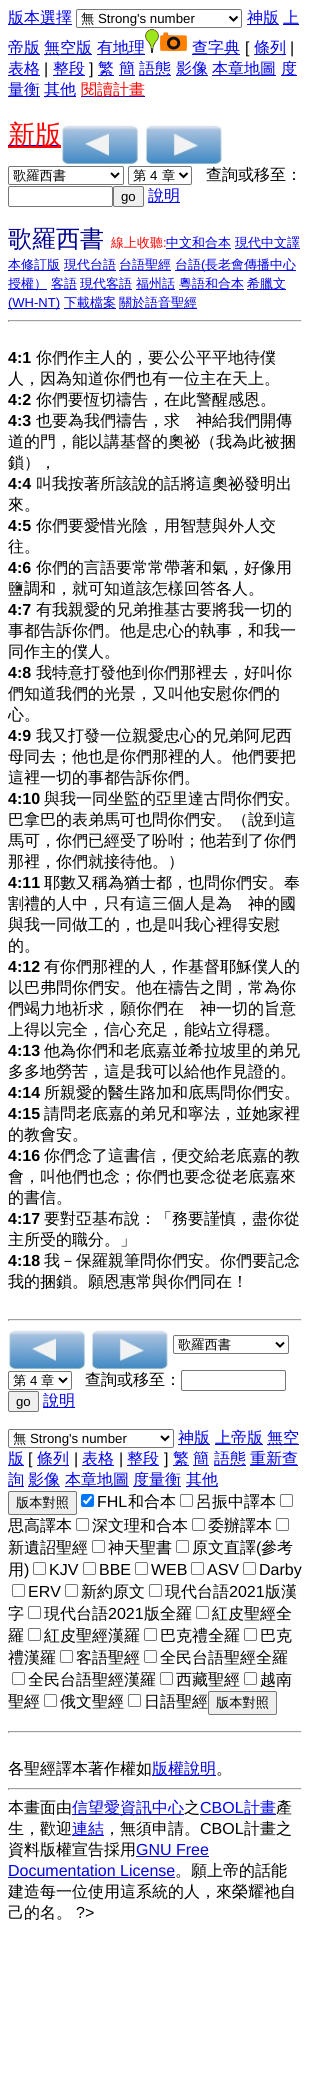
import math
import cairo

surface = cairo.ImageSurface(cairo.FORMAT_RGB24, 310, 2099)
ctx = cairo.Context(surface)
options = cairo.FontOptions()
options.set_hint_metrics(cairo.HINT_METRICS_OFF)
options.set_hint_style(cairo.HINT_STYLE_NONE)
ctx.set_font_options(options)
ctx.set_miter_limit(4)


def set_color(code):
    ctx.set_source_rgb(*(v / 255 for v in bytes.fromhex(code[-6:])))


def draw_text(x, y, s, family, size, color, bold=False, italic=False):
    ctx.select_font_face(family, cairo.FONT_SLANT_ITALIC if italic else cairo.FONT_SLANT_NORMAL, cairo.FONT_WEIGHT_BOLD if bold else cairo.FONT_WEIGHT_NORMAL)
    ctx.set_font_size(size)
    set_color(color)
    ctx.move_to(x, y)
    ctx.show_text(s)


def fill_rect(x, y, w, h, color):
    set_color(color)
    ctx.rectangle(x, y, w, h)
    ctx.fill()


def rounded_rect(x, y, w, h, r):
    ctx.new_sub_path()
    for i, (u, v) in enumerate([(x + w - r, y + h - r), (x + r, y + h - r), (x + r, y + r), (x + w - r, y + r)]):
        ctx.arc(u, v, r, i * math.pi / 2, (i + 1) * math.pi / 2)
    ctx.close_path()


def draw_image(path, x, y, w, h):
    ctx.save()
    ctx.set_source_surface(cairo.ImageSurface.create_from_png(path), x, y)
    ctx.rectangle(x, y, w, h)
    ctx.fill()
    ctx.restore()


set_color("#ffffff")
ctx.paint()
fill_rect(8, 24, 64, 1, "#0000ee")
draw_text(8, 23, "版本選擇", "WenQuanYi Zen Hei Medium", 16, "#0000ee")
rounded_rect(76.5, 9.5, 165, 18, 1.5)
set_color("#767676")
ctx.set_line_width(1)
ctx.stroke()
ctx.new_path()
ctx.move_to(229.5, 16.5)
ctx.line_to(233.5, 20.5)
ctx.line_to(237.5, 16.5)
set_color("#000000")
ctx.set_line_width(2)
ctx.stroke()
draw_text(81, 23, "無", "WenQuanYi Zen Hei Medium", 13.25, "#000000")
draw_text(98, 23, "Strong's number", "Liberation Sans", 13.25, "#000000")
fill_rect(247, 24, 32, 1, "#0000ee")
draw_text(247, 23, "神版", "WenQuanYi Zen Hei Medium", 16, "#0000ee")
draw_text(283, 23, "上", "WenQuanYi Zen Hei Medium", 16, "#0000ee")
fill_rect(283, 24, 16, 1, "#0000ee")
fill_rect(8, 54, 32, 1, "#0000ee")
draw_text(8, 53, "帝版", "WenQuanYi Zen Hei Medium", 16, "#0000ee")
fill_rect(44, 54, 48, 1, "#0000ee")
draw_text(44, 53, "無空版", "WenQuanYi Zen Hei Medium", 16, "#0000ee")
fill_rect(97, 54, 48, 1, "#0000ee")
draw_text(97, 53, "有地理", "WenQuanYi Zen Hei Medium", 16, "#0000ee")
draw_image("assets/img1.png", 145, 29, 14, 24)
draw_image("assets/img2.png", 160, 32, 27, 20)
fill_rect(192, 54, 48, 1, "#0000ee")
draw_text(192, 53, "查字典", "WenQuanYi Zen Hei Medium", 16, "#0000ee")
draw_text(245, 53, "[", "Liberation Sans", 16, "#000000")
fill_rect(254, 54, 32, 1, "#0000ee")
draw_text(254, 53, "條列", "WenQuanYi Zen Hei Medium", 16, "#0000ee")
draw_text(290, 53, "|", "Liberation Sans", 16, "#000000")
fill_rect(8, 75, 32, 1, "#0000ee")
draw_text(8, 74, "表格", "WenQuanYi Zen Hei Medium", 16, "#0000ee")
draw_text(44, 74, "|", "Liberation Sans", 16, "#000000")
fill_rect(53, 75, 32, 1, "#0000ee")
draw_text(53, 74, "整段", "WenQuanYi Zen Hei Medium", 16, "#0000ee")
draw_text(89, 74, "]", "Liberation Sans", 16, "#000000")
fill_rect(98, 75, 16, 1, "#0000ee")
draw_text(98, 74, "繁", "WenQuanYi Zen Hei Medium", 16, "#0000ee")
fill_rect(119, 75, 16, 1, "#0000ee")
draw_text(119, 74, "簡", "WenQuanYi Zen Hei Medium", 16, "#0000ee")
fill_rect(139, 75, 32, 1, "#0000ee")
draw_text(139, 74, "語態", "WenQuanYi Zen Hei Medium", 16, "#0000ee")
fill_rect(176, 75, 32, 1, "#0000ee")
draw_text(176, 74, "影像", "WenQuanYi Zen Hei Medium", 16, "#0000ee")
fill_rect(212, 75, 64, 1, "#0000ee")
draw_text(212, 74, "本章地圖", "WenQuanYi Zen Hei Medium", 16, "#0000ee")
fill_rect(281, 75, 16, 1, "#0000ee")
draw_text(281, 74, "度", "WenQuanYi Zen Hei Medium", 16, "#0000ee")
fill_rect(8, 96, 32, 1, "#0000ee")
draw_text(8, 95, "量衡", "WenQuanYi Zen Hei Medium", 16, "#0000ee")
fill_rect(44, 96, 32, 1, "#0000ee")
draw_text(44, 95, "其他", "WenQuanYi Zen Hei Medium", 16, "#0000ee")
fill_rect(81, 96, 64, 1, "#0000ee")
draw_text(81, 95, "閱讀計畫", "WenQuanYi Zen Hei Medium", 16, "#ff0000")
fill_rect(8, 146, 53, 2, "#ff0000")
fill_rect(8, 145, 53, 1, "#0000ee")
draw_text(8, 144, "新版", "WenQuanYi Zen Hei Medium", 27, "#ff0000")
draw_image("assets/img3.png", 61, 125, 78, 40)
draw_image("assets/img4.png", 144, 125, 78, 40)
rounded_rect(8.5, 166.5, 115, 18, 1.5)
set_color("#767676")
ctx.set_line_width(1)
ctx.stroke()
ctx.new_path()
ctx.move_to(111, 173)
ctx.line_to(115, 177)
ctx.line_to(119, 173)
set_color("#000000")
ctx.set_line_width(2)
ctx.stroke()
draw_text(13, 180, "歌羅西書", "WenQuanYi Zen Hei Medium", 13.25, "#000000")
rounded_rect(128.5, 166.5, 63, 18, 1.5)
set_color("#767676")
ctx.set_line_width(1)
ctx.stroke()
ctx.new_path()
ctx.move_to(179.5, 173)
ctx.line_to(183.5, 177)
ctx.line_to(187.5, 173)
set_color("#000000")
ctx.set_line_width(2)
ctx.stroke()
draw_text(133, 180, "第", "WenQuanYi Zen Hei Medium", 13.25, "#000000")
draw_text(150, 180, "4", "Liberation Sans", 13.25, "#000000")
draw_text(162, 180, "章", "WenQuanYi Zen Hei Medium", 13.25, "#000000")
draw_text(206, 180, "查詢或移至：", "WenQuanYi Zen Hei Medium", 16, "#000000")
rounded_rect(8.5, 186.5, 104, 20, 1.5)
set_color("#767676")
ctx.set_line_width(1)
ctx.stroke()
set_color("#efefef")
rounded_rect(113.5, 186.5, 30, 20, 1.5)
ctx.fill_preserve()
set_color("#767676")
ctx.stroke()
draw_text(121, 201, "go", "Liberation Sans", 13.25, "#000000")
fill_rect(148, 202, 32, 1, "#0000ee")
draw_text(148, 201, "說明", "WenQuanYi Zen Hei Medium", 16, "#0000ee")
draw_text(8, 247, "歌羅西書", "WenQuanYi Zen Hei Medium", 24, "#000090")
draw_text(111, 247, "線上收聽", "WenQuanYi Zen Hei Medium", 13, "#ff0000")
draw_text(163, 247, ":", "Liberation Sans", 13, "#ff0000")
fill_rect(166, 248, 65, 1, "#0000ee")
draw_text(166, 247, "中文和合本", "WenQuanYi Zen Hei Medium", 13, "#0000ee")
fill_rect(235, 248, 65, 1, "#0000ee")
draw_text(235, 247, "現代中文譯", "WenQuanYi Zen Hei Medium", 13, "#0000ee")
fill_rect(8, 270, 52, 1, "#0000ee")
draw_text(8, 269, "本修訂版", "WenQuanYi Zen Hei Medium", 13, "#0000ee")
fill_rect(64, 270, 52, 1, "#0000ee")
draw_text(64, 269, "現代台語", "WenQuanYi Zen Hei Medium", 13, "#0000ee")
fill_rect(119, 270, 52, 1, "#0000ee")
draw_text(119, 269, "台語聖經", "WenQuanYi Zen Hei Medium", 13, "#0000ee")
fill_rect(175, 270, 121, 1, "#0000ee")
draw_text(175, 269, "台語", "WenQuanYi Zen Hei Medium", 13, "#0000ee")
draw_text(201, 269, "(", "Liberation Sans", 13, "#0000ee")
draw_text(205, 269, "長老會傳播中心", "WenQuanYi Zen Hei Medium", 13, "#0000ee")
fill_rect(8, 289, 39, 1, "#0000ee")
draw_text(8, 288, "授權）", "WenQuanYi Zen Hei Medium", 13, "#0000ee")
fill_rect(51, 289, 26, 1, "#0000ee")
draw_text(51, 288, "客語", "WenQuanYi Zen Hei Medium", 13, "#0000ee")
fill_rect(80, 289, 52, 1, "#0000ee")
draw_text(80, 288, "現代客語", "WenQuanYi Zen Hei Medium", 13, "#0000ee")
fill_rect(136, 289, 39, 1, "#0000ee")
draw_text(136, 288, "福州話", "WenQuanYi Zen Hei Medium", 13, "#0000ee")
fill_rect(179, 289, 65, 1, "#0000ee")
draw_text(179, 288, "粵語和合本", "WenQuanYi Zen Hei Medium", 13, "#0000ee")
fill_rect(247, 289, 39, 1, "#0000ee")
draw_text(247, 288, "希臘文", "WenQuanYi Zen Hei Medium", 13, "#0000ee")
fill_rect(8, 308, 52, 1, "#0000ee")
draw_text(8, 307, "(WH-NT)", "Liberation Sans", 13, "#0000ee")
fill_rect(64, 308, 52, 1, "#0000ee")
draw_text(64, 307, "下載檔案", "WenQuanYi Zen Hei Medium", 13, "#0000ee")
fill_rect(119, 308, 78, 1, "#0000ee")
draw_text(119, 307, "關於語音聖經", "WenQuanYi Zen Hei Medium", 13, "#0000ee")
fill_rect(8, 320, 294, 1, "#9f9f9f")
fill_rect(301, 320, 1, 2, "#eeeeee")
fill_rect(8, 321, 294, 1, "#eeeeee")
fill_rect(8, 320, 1, 2, "#9f9f9f")
draw_text(8, 363, "4:1", "Liberation Sans", 16, "#000000", bold=True)
draw_text(36, 363, "你們作主人的，要公公平平地待僕", "WenQuanYi Zen Hei Medium", 16, "#000000")
draw_text(8, 384, "人，因為知道你們也有一位主在天上。", "WenQuanYi Zen Hei Medium", 16, "#000000")
draw_text(8, 405, "4:2", "Liberation Sans", 16, "#000000", bold=True)
draw_text(36, 405, "你們要恆切禱告，在此警醒感恩。", "WenQuanYi Zen Hei Medium", 16, "#000000")
draw_text(8, 426, "4:3", "Liberation Sans", 16, "#000000", bold=True)
draw_text(36, 426, "也要為我們禱告，求　神給我們開傳", "WenQuanYi Zen Hei Medium", 16, "#000000")
draw_text(8, 447, "道的門，能以講基督的奧祕（我為此被捆", "WenQuanYi Zen Hei Medium", 16, "#000000")
draw_text(8, 468, "鎖），", "WenQuanYi Zen Hei Medium", 16, "#000000")
draw_text(8, 489, "4:4", "Liberation Sans", 16, "#000000", bold=True)
draw_text(36, 489, "叫我按著所該說的話將這奧祕發明出", "WenQuanYi Zen Hei Medium", 16, "#000000")
draw_text(8, 510, "來。", "WenQuanYi Zen Hei Medium", 16, "#000000")
draw_text(8, 531, "4:5", "Liberation Sans", 16, "#000000", bold=True)
draw_text(36, 531, "你們要愛惜光陰，用智慧與外人交", "WenQuanYi Zen Hei Medium", 16, "#000000")
draw_text(8, 552, "往。", "WenQuanYi Zen Hei Medium", 16, "#000000")
draw_text(8, 573, "4:6", "Liberation Sans", 16, "#000000", bold=True)
draw_text(36, 573, "你們的言語要常常帶著和氣，好像用", "WenQuanYi Zen Hei Medium", 16, "#000000")
draw_text(8, 594, "鹽調和，就可知道該怎樣回答各人。", "WenQuanYi Zen Hei Medium", 16, "#000000")
draw_text(8, 615, "4:7", "Liberation Sans", 16, "#000000", bold=True)
draw_text(36, 615, "有我親愛的兄弟推基古要將我一切的", "WenQuanYi Zen Hei Medium", 16, "#000000")
draw_text(8, 636, "事都告訴你們。他是忠心的執事，和我一", "WenQuanYi Zen Hei Medium", 16, "#000000")
draw_text(8, 657, "同作主的僕人。", "WenQuanYi Zen Hei Medium", 16, "#000000")
draw_text(8, 678, "4:8", "Liberation Sans", 16, "#000000", bold=True)
draw_text(36, 678, "我特意打發他到你們那裡去，好叫你", "WenQuanYi Zen Hei Medium", 16, "#000000")
draw_text(8, 699, "們知道我們的光景，又叫他安慰你們的", "WenQuanYi Zen Hei Medium", 16, "#000000")
draw_text(8, 720, "心。", "WenQuanYi Zen Hei Medium", 16, "#000000")
draw_text(8, 741, "4:9", "Liberation Sans", 16, "#000000", bold=True)
draw_text(36, 741, "我又打發一位親愛忠心的兄弟阿尼西", "WenQuanYi Zen Hei Medium", 16, "#000000")
draw_text(8, 762, "母同去；他也是你們那裡的人。他們要把", "WenQuanYi Zen Hei Medium", 16, "#000000")
draw_text(8, 783, "這裡一切的事都告訴你們。", "WenQuanYi Zen Hei Medium", 16, "#000000")
draw_text(8, 804, "4:10", "Liberation Sans", 16, "#000000", bold=True)
draw_text(44, 804, "與我一同坐監的亞里達古問你們安。", "WenQuanYi Zen Hei Medium", 16, "#000000")
draw_text(8, 825, "巴拿巴的表弟馬可也問你們安。（說到這", "WenQuanYi Zen Hei Medium", 16, "#000000")
draw_text(8, 846, "馬可，你們已經受了吩咐；他若到了你們", "WenQuanYi Zen Hei Medium", 16, "#000000")
draw_text(8, 867, "那裡，你們就接待他。）", "WenQuanYi Zen Hei Medium", 16, "#000000")
draw_text(8, 888, "4:11", "Liberation Sans", 16, "#000000", bold=True)
draw_text(44, 888, "耶數又稱為猶士都，也問你們安。奉", "WenQuanYi Zen Hei Medium", 16, "#000000")
draw_text(8, 909, "割禮的人中，只有這三個人是為　神的國", "WenQuanYi Zen Hei Medium", 16, "#000000")
draw_text(8, 930, "與我一同做工的，也是叫我心裡得安慰", "WenQuanYi Zen Hei Medium", 16, "#000000")
draw_text(8, 951, "的。", "WenQuanYi Zen Hei Medium", 16, "#000000")
draw_text(8, 972, "4:12", "Liberation Sans", 16, "#000000", bold=True)
draw_text(44, 972, "有你們那裡的人，作基督耶穌僕人的", "WenQuanYi Zen Hei Medium", 16, "#000000")
draw_text(8, 993, "以巴弗問你們安。他在禱告之間，常為你", "WenQuanYi Zen Hei Medium", 16, "#000000")
draw_text(8, 1014, "們竭力地祈求，願你們在　神一切的旨意", "WenQuanYi Zen Hei Medium", 16, "#000000")
draw_text(8, 1035, "上得以完全，信心充足，能站立得穩。", "WenQuanYi Zen Hei Medium", 16, "#000000")
draw_text(8, 1056, "4:13", "Liberation Sans", 16, "#000000", bold=True)
draw_text(44, 1056, "他為你們和老底嘉並希拉坡里的弟兄", "WenQuanYi Zen Hei Medium", 16, "#000000")
draw_text(8, 1077, "多多地勞苦，這是我可以給他作見證的。", "WenQuanYi Zen Hei Medium", 16, "#000000")
draw_text(8, 1098, "4:14", "Liberation Sans", 16, "#000000", bold=True)
draw_text(44, 1098, "所親愛的醫生路加和底馬問你們安。", "WenQuanYi Zen Hei Medium", 16, "#000000")
draw_text(8, 1119, "4:15", "Liberation Sans", 16, "#000000", bold=True)
draw_text(44, 1119, "請問老底嘉的弟兄和寧法，並她家裡", "WenQuanYi Zen Hei Medium", 16, "#000000")
draw_text(8, 1140, "的教會安。", "WenQuanYi Zen Hei Medium", 16, "#000000")
draw_text(8, 1161, "4:16", "Liberation Sans", 16, "#000000", bold=True)
draw_text(44, 1161, "你們念了這書信，便交給老底嘉的教", "WenQuanYi Zen Hei Medium", 16, "#000000")
draw_text(8, 1182, "會，叫他們也念；你們也要念從老底嘉來", "WenQuanYi Zen Hei Medium", 16, "#000000")
draw_text(8, 1203, "的書信。", "WenQuanYi Zen Hei Medium", 16, "#000000")
draw_text(8, 1224, "4:17", "Liberation Sans", 16, "#000000", bold=True)
draw_text(44, 1224, "要對亞基布說：「務要謹慎，盡你從", "WenQuanYi Zen Hei Medium", 16, "#000000")
draw_text(8, 1245, "主所受的職分。」", "WenQuanYi Zen Hei Medium", 16, "#000000")
draw_text(8, 1266, "4:18", "Liberation Sans", 16, "#000000", bold=True)
draw_text(44, 1266, "我－保羅親筆問你們安。你們要記念", "WenQuanYi Zen Hei Medium", 16, "#000000")
draw_text(8, 1287, "我的捆鎖。願恩惠常與你們同在！", "WenQuanYi Zen Hei Medium", 16, "#000000")
fill_rect(8, 1319, 294, 1, "#9f9f9f")
fill_rect(301, 1319, 1, 2, "#eeeeee")
fill_rect(8, 1320, 294, 1, "#eeeeee")
fill_rect(8, 1319, 1, 2, "#9f9f9f")
draw_image("assets/img3.png", 8, 1330, 78, 40)
draw_image("assets/img4.png", 90, 1330, 78, 40)
rounded_rect(173.5, 1335.5, 115, 18, 1.5)
set_color("#767676")
ctx.stroke()
ctx.new_path()
ctx.move_to(276, 1342.5)
ctx.line_to(280, 1346.5)
ctx.line_to(284, 1342.5)
set_color("#000000")
ctx.set_line_width(2)
ctx.stroke()
draw_text(178, 1349, "歌羅西書", "WenQuanYi Zen Hei Medium", 13.25, "#000000")
rounded_rect(8.5, 1371.5, 63, 18, 1.5)
set_color("#767676")
ctx.set_line_width(1)
ctx.stroke()
ctx.new_path()
ctx.move_to(59, 1378)
ctx.line_to(63, 1382)
ctx.line_to(67, 1378)
set_color("#000000")
ctx.set_line_width(2)
ctx.stroke()
draw_text(13, 1385, "第", "WenQuanYi Zen Hei Medium", 13.25, "#000000")
draw_text(30, 1385, "4", "Liberation Sans", 13.25, "#000000")
draw_text(41, 1385, "章", "WenQuanYi Zen Hei Medium", 13.25, "#000000")
draw_text(85, 1385, "查詢或移至：", "WenQuanYi Zen Hei Medium", 16, "#000000")
rounded_rect(181.5, 1370.5, 104, 20, 1.5)
set_color("#767676")
ctx.set_line_width(1)
ctx.stroke()
set_color("#efefef")
rounded_rect(8.5, 1391.5, 30, 20, 1.5)
ctx.fill_preserve()
set_color("#767676")
ctx.stroke()
draw_text(16, 1406, "go", "Liberation Sans", 13.25, "#000000")
fill_rect(43, 1407, 32, 1, "#0000ee")
draw_text(43, 1406, "說明", "WenQuanYi Zen Hei Medium", 16, "#0000ee")
rounded_rect(8.5, 1429.5, 165, 18, 1.5)
set_color("#767676")
ctx.stroke()
ctx.new_path()
ctx.move_to(161, 1436)
ctx.line_to(165, 1440)
ctx.line_to(169, 1436)
set_color("#000000")
ctx.set_line_width(2)
ctx.stroke()
draw_text(13, 1443, "無", "WenQuanYi Zen Hei Medium", 13.25, "#000000")
draw_text(30, 1443, "Strong's number", "Liberation Sans", 13.25, "#000000")
fill_rect(178, 1444, 32, 1, "#0000ee")
draw_text(178, 1443, "神版", "WenQuanYi Zen Hei Medium", 16, "#0000ee")
fill_rect(215, 1444, 48, 1, "#0000ee")
draw_text(215, 1443, "上帝版", "WenQuanYi Zen Hei Medium", 16, "#0000ee")
fill_rect(267, 1444, 32, 1, "#0000ee")
draw_text(267, 1443, "無空", "WenQuanYi Zen Hei Medium", 16, "#0000ee")
fill_rect(8, 1465, 16, 1, "#0000ee")
draw_text(8, 1464, "版", "WenQuanYi Zen Hei Medium", 16, "#0000ee")
draw_text(28, 1464, "[", "Liberation Sans", 16, "#000000")
fill_rect(37, 1465, 32, 1, "#0000ee")
draw_text(37, 1464, "條列", "WenQuanYi Zen Hei Medium", 16, "#0000ee")
draw_text(74, 1464, "|", "Liberation Sans", 16, "#000000")
fill_rect(82, 1465, 32, 1, "#0000ee")
draw_text(82, 1464, "表格", "WenQuanYi Zen Hei Medium", 16, "#0000ee")
draw_text(119, 1464, "|", "Liberation Sans", 16, "#000000")
fill_rect(127, 1465, 32, 1, "#0000ee")
draw_text(127, 1464, "整段", "WenQuanYi Zen Hei Medium", 16, "#0000ee")
draw_text(164, 1464, "]", "Liberation Sans", 16, "#000000")
fill_rect(173, 1465, 16, 1, "#0000ee")
draw_text(173, 1464, "繁", "WenQuanYi Zen Hei Medium", 16, "#0000ee")
fill_rect(193, 1465, 16, 1, "#0000ee")
draw_text(193, 1464, "簡", "WenQuanYi Zen Hei Medium", 16, "#0000ee")
fill_rect(214, 1465, 32, 1, "#0000ee")
draw_text(214, 1464, "語態", "WenQuanYi Zen Hei Medium", 16, "#0000ee")
fill_rect(250, 1465, 48, 1, "#0000ee")
draw_text(250, 1464, "重新查", "WenQuanYi Zen Hei Medium", 16, "#0000ee")
fill_rect(8, 1486, 16, 1, "#0000ee")
draw_text(8, 1485, "詢", "WenQuanYi Zen Hei Medium", 16, "#0000ee")
fill_rect(28, 1486, 32, 1, "#0000ee")
draw_text(28, 1485, "影像", "WenQuanYi Zen Hei Medium", 16, "#0000ee")
fill_rect(65, 1486, 64, 1, "#0000ee")
draw_text(65, 1485, "本章地圖", "WenQuanYi Zen Hei Medium", 16, "#0000ee")
fill_rect(133, 1486, 48, 1, "#0000ee")
draw_text(133, 1485, "度量衡", "WenQuanYi Zen Hei Medium", 16, "#0000ee")
fill_rect(186, 1486, 32, 1, "#0000ee")
draw_text(186, 1485, "其他", "WenQuanYi Zen Hei Medium", 16, "#0000ee")
set_color("#efefef")
rounded_rect(8.5, 1491.5, 68, 23, 1.5)
ctx.fill_preserve()
set_color("#767676")
ctx.set_line_width(1)
ctx.stroke()
draw_text(16, 1507, "版本對照", "WenQuanYi Zen Hei Medium", 13.25, "#000000")
set_color("#0075ff")
rounded_rect(81, 1494, 13, 13, 2)
ctx.fill()
ctx.new_path()
ctx.move_to(83.5, 1500.5)
ctx.line_to(86, 1503)
ctx.line_to(91.5, 1496.5)
set_color("#ffffff")
ctx.set_line_width(2.1)
ctx.stroke()
draw_text(97, 1507, "FHL", "Liberation Sans", 16, "#000000")
draw_text(128, 1507, "和合本", "WenQuanYi Zen Hei Medium", 16, "#000000")
rounded_rect(180.5, 1494.5, 12, 12, 1.5)
set_color("#767676")
ctx.set_line_width(1)
ctx.stroke()
draw_text(196, 1507, "呂振中譯本", "WenQuanYi Zen Hei Medium", 16, "#000000")
rounded_rect(280.5, 1494.5, 12, 12, 1.5)
set_color("#767676")
ctx.stroke()
draw_text(8, 1531, "思高譯本", "WenQuanYi Zen Hei Medium", 16, "#000000")
rounded_rect(76.5, 1518.5, 12, 12, 1.5)
set_color("#767676")
ctx.stroke()
draw_text(92, 1531, "深文理和合本", "WenQuanYi Zen Hei Medium", 16, "#000000")
rounded_rect(192.5, 1518.5, 12, 12, 1.5)
set_color("#767676")
ctx.stroke()
draw_text(208, 1531, "委辦譯本", "WenQuanYi Zen Hei Medium", 16, "#000000")
rounded_rect(276.5, 1518.5, 12, 12, 1.5)
set_color("#767676")
ctx.stroke()
draw_text(8, 1553, "新遺詔聖經", "WenQuanYi Zen Hei Medium", 16, "#000000")
rounded_rect(92.5, 1540.5, 12, 12, 1.5)
set_color("#767676")
ctx.stroke()
draw_text(108, 1553, "神天聖書", "WenQuanYi Zen Hei Medium", 16, "#000000")
rounded_rect(176.5, 1540.5, 12, 12, 1.5)
set_color("#767676")
ctx.stroke()
draw_text(192, 1553, "原文直譯", "WenQuanYi Zen Hei Medium", 16, "#000000")
draw_text(256, 1553, "(", "Liberation Sans", 16, "#000000")
draw_text(261, 1553, "參考", "WenQuanYi Zen Hei Medium", 16, "#000000")
draw_text(8, 1575, "用", "WenQuanYi Zen Hei Medium", 16, "#000000")
draw_text(24, 1575, ")", "Liberation Sans", 16, "#000000")
rounded_rect(33.5, 1562.5, 12, 12, 1.5)
set_color("#767676")
ctx.stroke()
draw_text(49, 1575, "KJV", "Liberation Sans", 16, "#000000")
rounded_rect(83.5, 1562.5, 12, 12, 1.5)
set_color("#767676")
ctx.stroke()
draw_text(99, 1575, "BBE", "Liberation Sans", 16, "#000000")
rounded_rect(135.5, 1562.5, 12, 12, 1.5)
set_color("#767676")
ctx.stroke()
draw_text(151, 1575, "WEB", "Liberation Sans", 16, "#000000")
rounded_rect(191.5, 1562.5, 12, 12, 1.5)
set_color("#767676")
ctx.stroke()
draw_text(207, 1575, "ASV", "Liberation Sans", 16, "#000000")
rounded_rect(243.5, 1562.5, 12, 12, 1.5)
set_color("#767676")
ctx.stroke()
draw_text(259, 1575, "Darby", "Liberation Sans", 16, "#000000")
rounded_rect(12.5, 1584.5, 12, 12, 1.5)
set_color("#767676")
ctx.stroke()
draw_text(28, 1597, "ERV", "Liberation Sans", 16, "#000000")
rounded_rect(65.5, 1584.5, 12, 12, 1.5)
set_color("#767676")
ctx.stroke()
draw_text(81, 1597, "新約原文", "WenQuanYi Zen Hei Medium", 16, "#000000")
rounded_rect(149.5, 1584.5, 12, 12, 1.5)
set_color("#767676")
ctx.stroke()
draw_text(165, 1597, "現代台語", "WenQuanYi Zen Hei Medium", 16, "#000000")
draw_text(229, 1597, "2021", "Liberation Sans", 16, "#000000")
draw_text(265, 1597, "版漢", "WenQuanYi Zen Hei Medium", 16, "#000000")
draw_text(8, 1619, "字", "WenQuanYi Zen Hei Medium", 16, "#000000")
rounded_rect(28.5, 1606.5, 12, 12, 1.5)
set_color("#767676")
ctx.stroke()
draw_text(44, 1619, "現代台語", "WenQuanYi Zen Hei Medium", 16, "#000000")
draw_text(108, 1619, "2021", "Liberation Sans", 16, "#000000")
draw_text(144, 1619, "版全羅", "WenQuanYi Zen Hei Medium", 16, "#000000")
rounded_rect(196.5, 1606.5, 12, 12, 1.5)
set_color("#767676")
ctx.stroke()
draw_text(212, 1619, "紅皮聖經全", "WenQuanYi Zen Hei Medium", 16, "#000000")
draw_text(8, 1641, "羅", "WenQuanYi Zen Hei Medium", 16, "#000000")
rounded_rect(28.5, 1628.5, 12, 12, 1.5)
set_color("#767676")
ctx.stroke()
draw_text(44, 1641, "紅皮聖經漢羅", "WenQuanYi Zen Hei Medium", 16, "#000000")
rounded_rect(144.5, 1628.5, 12, 12, 1.5)
set_color("#767676")
ctx.stroke()
draw_text(160, 1641, "巴克禮全羅", "WenQuanYi Zen Hei Medium", 16, "#000000")
rounded_rect(244.5, 1628.5, 12, 12, 1.5)
set_color("#767676")
ctx.stroke()
draw_text(260, 1641, "巴克", "WenQuanYi Zen Hei Medium", 16, "#000000")
draw_text(8, 1663, "禮漢羅", "WenQuanYi Zen Hei Medium", 16, "#000000")
rounded_rect(60.5, 1650.5, 12, 12, 1.5)
set_color("#767676")
ctx.stroke()
draw_text(76, 1663, "客語聖經", "WenQuanYi Zen Hei Medium", 16, "#000000")
rounded_rect(144.5, 1650.5, 12, 12, 1.5)
set_color("#767676")
ctx.stroke()
draw_text(160, 1663, "全民台語聖經全羅", "WenQuanYi Zen Hei Medium", 16, "#000000")
rounded_rect(12.5, 1672.5, 12, 12, 1.5)
set_color("#767676")
ctx.stroke()
draw_text(28, 1685, "全民台語聖經漢羅", "WenQuanYi Zen Hei Medium", 16, "#000000")
rounded_rect(160.5, 1672.5, 12, 12, 1.5)
set_color("#767676")
ctx.stroke()
draw_text(176, 1685, "西藏聖經", "WenQuanYi Zen Hei Medium", 16, "#000000")
rounded_rect(244.5, 1672.5, 12, 12, 1.5)
set_color("#767676")
ctx.stroke()
draw_text(260, 1685, "越南", "WenQuanYi Zen Hei Medium", 16, "#000000")
draw_text(8, 1707, "聖經", "WenQuanYi Zen Hei Medium", 16, "#000000")
rounded_rect(44.5, 1694.5, 12, 12, 1.5)
set_color("#767676")
ctx.stroke()
draw_text(60, 1707, "俄文聖經", "WenQuanYi Zen Hei Medium", 16, "#000000")
rounded_rect(128.5, 1694.5, 12, 12, 1.5)
set_color("#767676")
ctx.stroke()
draw_text(144, 1707, "日語聖經", "WenQuanYi Zen Hei Medium", 16, "#000000")
set_color("#efefef")
rounded_rect(208.5, 1691.5, 68, 23, 1.5)
ctx.fill_preserve()
set_color("#767676")
ctx.stroke()
draw_text(216, 1707, "版本對照", "WenQuanYi Zen Hei Medium", 13.25, "#000000")
fill_rect(8, 1731, 294, 1, "#9f9f9f")
fill_rect(301, 1731, 1, 2, "#eeeeee")
fill_rect(8, 1732, 294, 1, "#eeeeee")
fill_rect(8, 1731, 1, 2, "#9f9f9f")
draw_text(8, 1774, "各聖經譯本著作權如", "WenQuanYi Zen Hei Medium", 16, "#000000")
fill_rect(152, 1775, 64, 1, "#0000ee")
draw_text(152, 1774, "版權說明", "WenQuanYi Zen Hei Medium", 16, "#0000ee")
draw_text(216, 1774, "。", "WenQuanYi Zen Hei Medium", 16, "#000000")
fill_rect(8, 1788, 294, 1, "#9f9f9f")
fill_rect(301, 1788, 1, 2, "#eeeeee")
fill_rect(8, 1789, 294, 1, "#eeeeee")
fill_rect(8, 1788, 1, 2, "#9f9f9f")
draw_text(8, 1813, "本畫面由", "WenQuanYi Zen Hei Medium", 16, "#000000")
fill_rect(72, 1814, 112, 1, "#0000ee")
draw_text(72, 1813, "信望愛資訊中心", "WenQuanYi Zen Hei Medium", 16, "#0000ee")
draw_text(184, 1813, "之", "WenQuanYi Zen Hei Medium", 16, "#000000")
draw_text(200, 1813, "CBOL", "Liberation Sans", 16, "#0000ee")
fill_rect(200, 1814, 76, 1, "#0000ee")
draw_text(244, 1813, "計畫", "WenQuanYi Zen Hei Medium", 16, "#0000ee")
draw_text(276, 1813, "產", "WenQuanYi Zen Hei Medium", 16, "#000000")
draw_text(8, 1834, "生，歡迎", "WenQuanYi Zen Hei Medium", 16, "#000000")
fill_rect(72, 1835, 32, 1, "#0000ee")
draw_text(72, 1834, "連結", "WenQuanYi Zen Hei Medium", 16, "#0000ee")
draw_text(104, 1834, "，無須申請。", "WenQuanYi Zen Hei Medium", 16, "#000000")
draw_text(200, 1834, "CBOL", "Liberation Sans", 16, "#000000")
draw_text(244, 1834, "計畫之", "WenQuanYi Zen Hei Medium", 16, "#000000")
draw_text(8, 1855, "資料版權宣告採用", "WenQuanYi Zen Hei Medium", 16, "#000000")
draw_text(136, 1855, "GNU Free", "Liberation Sans", 16, "#0000ee")
fill_rect(136, 1856, 73, 1, "#0000ee")
draw_text(8, 1876, "Documentation License", "Liberation Sans", 16, "#0000ee")
fill_rect(8, 1877, 167, 1, "#0000ee")
draw_text(175, 1876, "。願上帝的話能", "WenQuanYi Zen Hei Medium", 16, "#000000")
draw_text(8, 1897, "建造每一位使用這系統的人，來榮耀祂自", "WenQuanYi Zen Hei Medium", 16, "#000000")
draw_text(8, 1918, "己的名。", "WenQuanYi Zen Hei Medium", 16, "#000000")
draw_text(76, 1918, "?>", "Liberation Sans", 16, "#000000")
surface.write_to_png("output.png")
